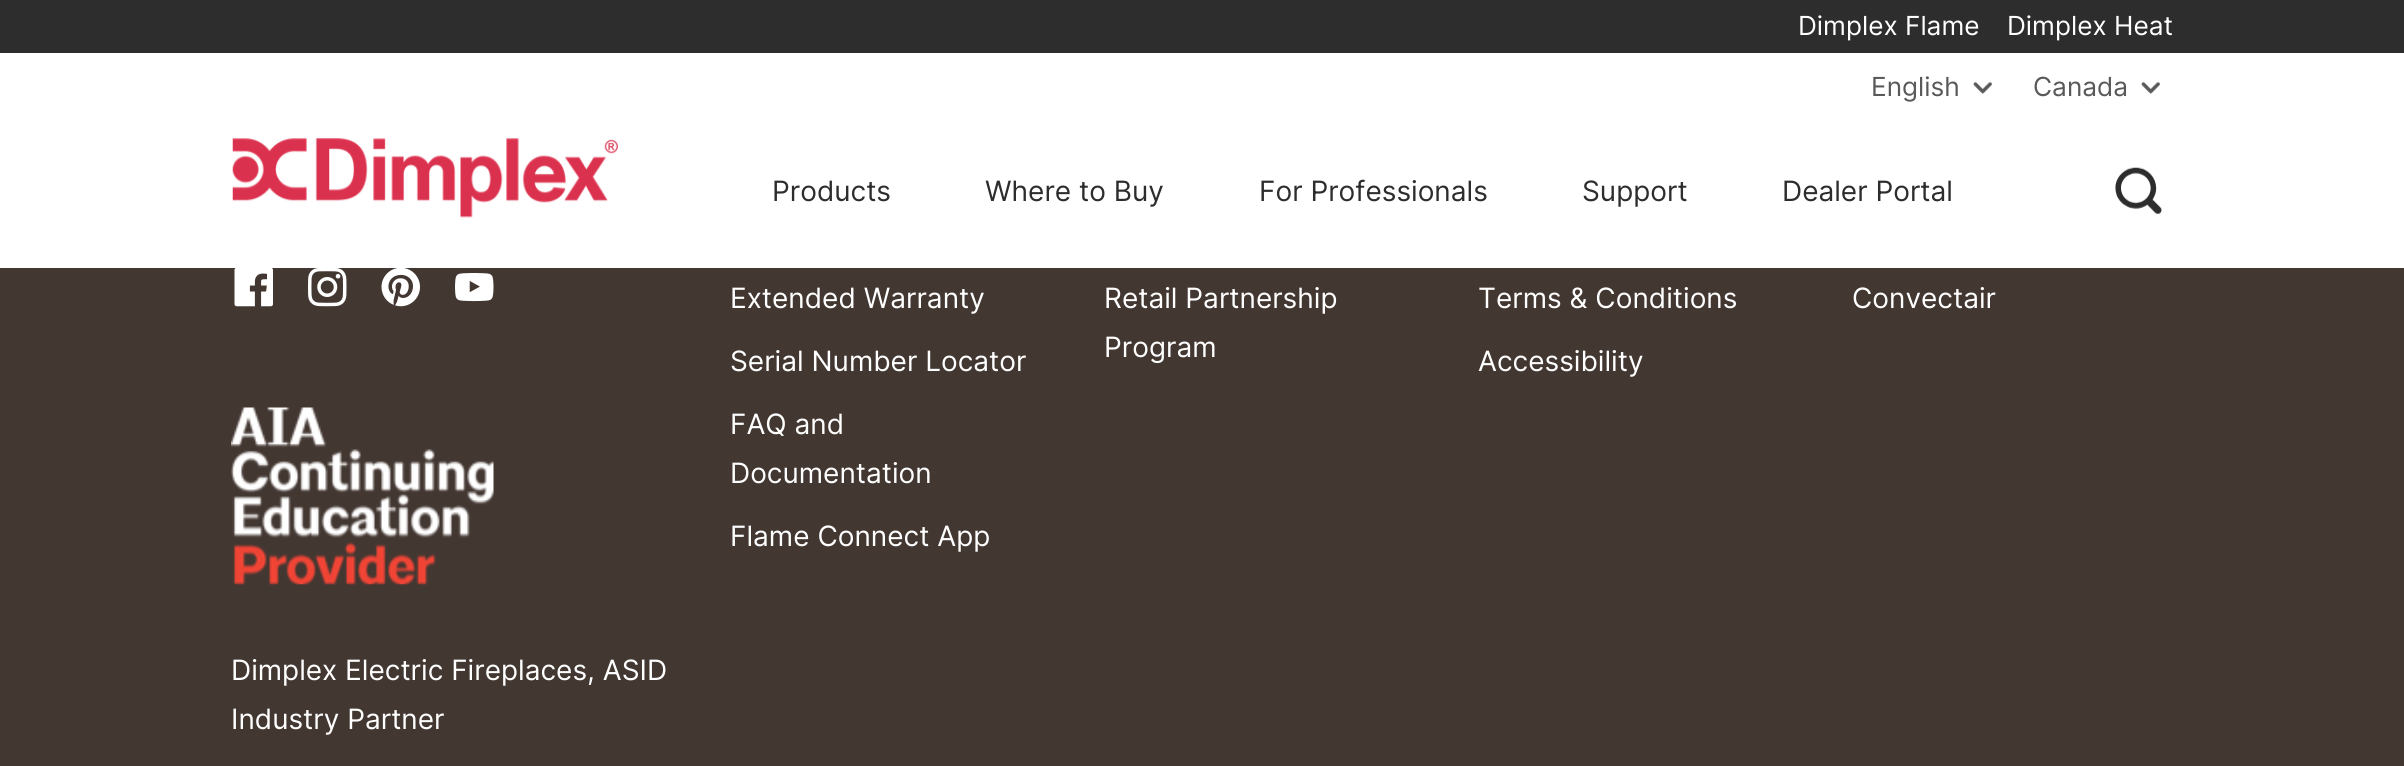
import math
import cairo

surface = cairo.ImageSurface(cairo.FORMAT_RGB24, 2404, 766)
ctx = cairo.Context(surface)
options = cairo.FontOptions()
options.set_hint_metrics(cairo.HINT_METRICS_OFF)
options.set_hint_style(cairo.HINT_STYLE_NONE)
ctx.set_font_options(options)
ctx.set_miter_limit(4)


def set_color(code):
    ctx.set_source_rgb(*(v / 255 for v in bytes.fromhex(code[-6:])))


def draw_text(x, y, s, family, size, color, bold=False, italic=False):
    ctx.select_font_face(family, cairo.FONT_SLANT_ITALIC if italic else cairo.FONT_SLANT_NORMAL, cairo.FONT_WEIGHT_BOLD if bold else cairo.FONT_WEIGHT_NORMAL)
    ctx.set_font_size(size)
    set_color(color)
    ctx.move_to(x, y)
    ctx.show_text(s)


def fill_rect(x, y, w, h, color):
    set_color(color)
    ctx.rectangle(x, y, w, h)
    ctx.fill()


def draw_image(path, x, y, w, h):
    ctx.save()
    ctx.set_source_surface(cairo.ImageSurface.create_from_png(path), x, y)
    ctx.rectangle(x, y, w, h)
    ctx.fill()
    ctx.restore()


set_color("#433732")
ctx.paint()
fill_rect(0, 53, 2404, 215, "#ffffff")
set_color("#2d2d2d")
ctx.new_path()
ctx.move_to(1255, 52)
ctx.line_to(1255, 53)
ctx.line_to(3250, 53)
ctx.line_to(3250, 0)
ctx.line_to(2200, 0)
ctx.line_to(2200, 52)
ctx.close_path()
ctx.fill()
ctx.new_path()
ctx.move_to(-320, 0)
ctx.line_to(-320, 53)
ctx.line_to(1675, 53)
ctx.line_to(1675, 52)
ctx.line_to(205, 52)
ctx.line_to(205, 0)
ctx.close_path()
ctx.fill()
fill_rect(205, 0, 1995, 52, "#2d2d2d")
draw_text(1798, 35, "Dimplex Flame", "Inter", 26.25, "#ffffff")
draw_text(2007, 35, "Dimplex Heat", "Inter", 26.25, "#ffffff")
draw_text(1871, 96, "English", "Inter", 26.25, "#595959")
draw_image("assets/img1.png", 1973, 81, 19, 13)
draw_text(2033, 96, "Canada", "Inter", 26.25, "#595959")
draw_image("assets/img1.png", 2141, 81, 19, 13)
draw_image("assets/img2.png", 232, 138, 386, 80)
draw_text(772, 201, "Products", "Inter", 28, "#2d2d2d")
draw_text(985, 201, "Where to Buy", "Inter", 28, "#2d2d2d")
draw_text(1259, 201, "For Professionals", "Inter", 28, "#2d2d2d")
draw_text(1582, 201, "Support", "Inter", 28, "#2d2d2d")
draw_text(1782, 201, "Dealer Portal", "Inter", 28, "#2d2d2d")
draw_image("assets/img3.png", 2115, 167, 47, 47)
draw_text(730, 308, "Extended Warranty", "Inter", 28, "#ffffff")
draw_text(730, 371, "Serial Number Locator", "Inter", 28, "#ffffff")
draw_text(730, 434, "FAQ and", "Inter", 28, "#ffffff")
draw_text(730, 483, "Documentation", "Inter", 28, "#ffffff")
draw_text(730, 546, "Flame Connect App", "Inter", 28, "#ffffff")
draw_text(1104, 308, "Retail Partnership", "Inter", 28, "#ffffff")
draw_text(1104, 357, "Program", "Inter", 28, "#ffffff")
draw_text(1478, 308, "Terms & Conditions", "Inter", 28, "#ffffff")
draw_text(1478, 371, "Accessibility", "Inter", 28, "#ffffff")
draw_text(1852, 308, "Convectair", "Inter", 28, "#ffffff")
draw_image("assets/img4.png", 234, 268, 39, 39)
draw_image("assets/img5.png", 308, 268, 39, 39)
draw_image("assets/img6.png", 381, 268, 39, 39)
draw_image("assets/img7.png", 455, 273, 39, 29)
draw_image("assets/img8.png", 231, 407, 263, 178)
draw_text(231, 680, "Dimplex Electric Fireplaces, ASID", "Inter", 28, "#ffffff")
draw_text(231, 729, "Industry Partner", "Inter", 28, "#ffffff")
surface.write_to_png("output.png")
